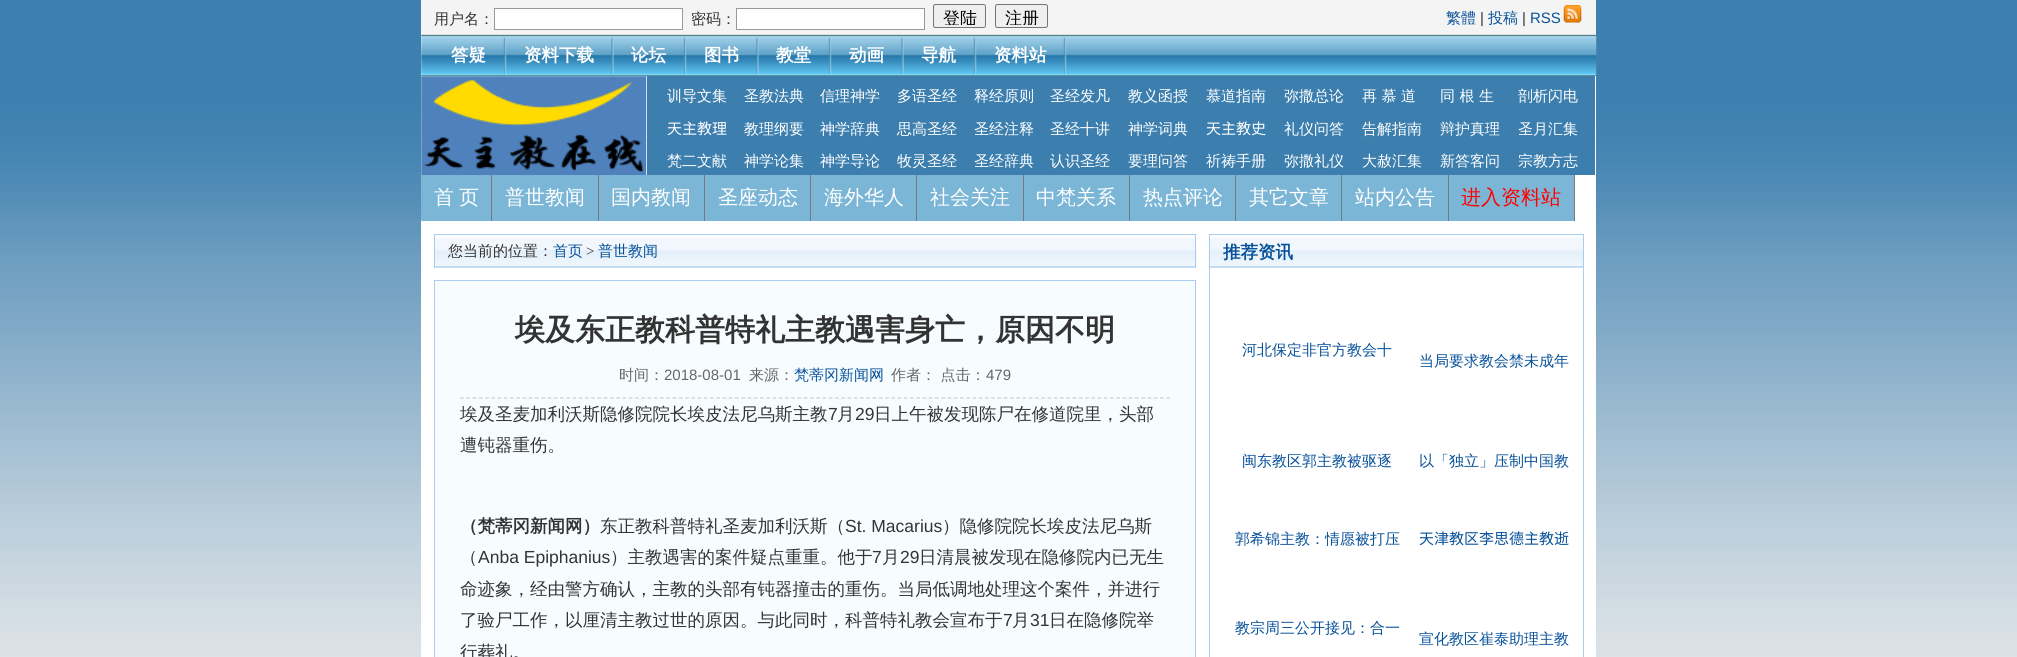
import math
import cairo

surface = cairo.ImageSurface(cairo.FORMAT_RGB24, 2017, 657)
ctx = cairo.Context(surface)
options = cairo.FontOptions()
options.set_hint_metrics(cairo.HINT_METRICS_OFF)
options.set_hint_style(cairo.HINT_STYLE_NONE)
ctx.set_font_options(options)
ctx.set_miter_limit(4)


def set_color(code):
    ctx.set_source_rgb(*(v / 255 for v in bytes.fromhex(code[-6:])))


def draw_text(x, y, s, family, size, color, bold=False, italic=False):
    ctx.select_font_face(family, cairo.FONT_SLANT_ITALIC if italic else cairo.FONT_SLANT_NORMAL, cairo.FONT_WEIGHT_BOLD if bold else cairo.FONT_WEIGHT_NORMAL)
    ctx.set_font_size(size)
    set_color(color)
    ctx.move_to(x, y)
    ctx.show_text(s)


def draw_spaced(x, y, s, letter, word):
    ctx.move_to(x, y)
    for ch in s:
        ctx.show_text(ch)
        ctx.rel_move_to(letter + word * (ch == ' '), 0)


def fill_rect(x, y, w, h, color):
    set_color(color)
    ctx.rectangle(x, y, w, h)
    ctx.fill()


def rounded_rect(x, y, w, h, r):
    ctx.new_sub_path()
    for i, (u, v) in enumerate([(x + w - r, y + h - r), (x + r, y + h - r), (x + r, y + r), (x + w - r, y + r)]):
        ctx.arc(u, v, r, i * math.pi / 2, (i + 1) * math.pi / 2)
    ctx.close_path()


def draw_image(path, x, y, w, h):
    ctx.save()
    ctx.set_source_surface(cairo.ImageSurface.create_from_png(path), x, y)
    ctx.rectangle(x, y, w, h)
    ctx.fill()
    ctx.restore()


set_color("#ffffff")
ctx.paint()
draw_image("assets/img1.png", 0, 0, 2017, 657)
fill_rect(421, 35, 1175, 622, "#ffffff")
fill_rect(421, 34, 1175, 1, "#dcdcdc")
fill_rect(421, 0, 1175, 34, "#f4f4f4")
draw_text(434, 24, "用户名：", "WenQuanYi Zen Hei Medium", 15, "#333333")
set_color("#ffffff")
ctx.rectangle(494.5, 8.5, 188, 21)
ctx.fill_preserve()
set_color("#999999")
ctx.set_line_width(1)
ctx.stroke()
draw_text(691, 24, "密码：", "WenQuanYi Zen Hei Medium", 15, "#333333")
set_color("#ffffff")
ctx.rectangle(736.5, 8.5, 188, 21)
ctx.fill_preserve()
set_color("#999999")
ctx.stroke()
set_color("#efefef")
rounded_rect(933.5, 4.5, 52, 23, 2)
ctx.fill_preserve()
set_color("#767676")
ctx.stroke()
ctx.save()
ctx.rectangle(935, 6, 49, 19)
ctx.clip()
draw_text(943, 24, "登陆", "WenQuanYi Zen Hei Medium", 17, "#000000")
ctx.restore()
set_color("#efefef")
rounded_rect(995.5, 4.5, 52, 23, 2)
ctx.fill_preserve()
set_color("#767676")
ctx.stroke()
ctx.save()
ctx.rectangle(998, 6, 47, 19)
ctx.clip()
draw_text(1005, 24, "注册", "WenQuanYi Zen Hei Medium", 17, "#000000")
ctx.restore()
draw_text(1446, 23, "繁體", "WenQuanYi Zen Hei Medium", 15, "#07519a")
draw_text(1480, 23, "|", "Liberation Sans", 15, "#333333")
draw_text(1488, 23, "投稿", "WenQuanYi Zen Hei Medium", 15, "#07519a")
draw_text(1522, 23, "|", "Liberation Sans", 15, "#333333")
draw_text(1530, 23, "RSS", "Liberation Sans", 15, "#07519a")
draw_image("assets/img2.png", 1563, 5, 19, 18)
draw_image("assets/img3.png", 421, 35, 1176, 42)
draw_image("assets/img4.png", 503, 37, 4, 40)
draw_text(451, 61, "答疑", "WenQuanYi Zen Hei", 17.5, "#ffffff", bold=True)
draw_image("assets/img5.png", 611, 37, 3, 40)
draw_text(524, 61, "资料下载", "WenQuanYi Zen Hei", 17.5, "#ffffff", bold=True)
fill_rect(647, 76, 948, 99, "#3c7faf")
draw_image("assets/img6.png", 683, 37, 4, 40)
draw_text(631, 61, "论坛", "WenQuanYi Zen Hei", 17.5, "#ffffff", bold=True)
draw_image("assets/img7.png", 756, 37, 3, 40)
draw_text(704, 61, "图书", "WenQuanYi Zen Hei", 17.5, "#ffffff", bold=True)
draw_image("assets/img6.png", 828, 37, 4, 40)
draw_text(776, 61, "教堂", "WenQuanYi Zen Hei", 17.5, "#ffffff", bold=True)
draw_image("assets/img7.png", 901, 37, 3, 40)
draw_text(849, 61, "动画", "WenQuanYi Zen Hei", 17.5, "#ffffff", bold=True)
draw_image("assets/img6.png", 973, 37, 4, 40)
draw_text(921, 61, "导航", "WenQuanYi Zen Hei", 17.5, "#ffffff", bold=True)
draw_image("assets/img6.png", 1063, 37, 4, 40)
draw_text(994, 61, "资料站", "WenQuanYi Zen Hei", 17.5, "#ffffff", bold=True)
draw_image("assets/img8.png", 421, 76, 226, 99)
draw_text(667, 101, "训导文集", "WenQuanYi Zen Hei Medium", 15, "#ffffff")
draw_text(744, 101, "圣教法典", "WenQuanYi Zen Hei Medium", 15, "#ffffff")
draw_text(820, 101, "信理神学", "WenQuanYi Zen Hei Medium", 15, "#ffffff")
draw_text(897, 101, "多语圣经", "WenQuanYi Zen Hei Medium", 15, "#ffffff")
draw_text(974, 101, "释经原则", "WenQuanYi Zen Hei Medium", 15, "#ffffff")
draw_text(1050, 101, "圣经发凡", "WenQuanYi Zen Hei Medium", 15, "#ffffff")
draw_text(1128, 101, "教义函授", "WenQuanYi Zen Hei Medium", 15, "#ffffff")
draw_text(1206, 101, "慕道指南", "WenQuanYi Zen Hei Medium", 15, "#ffffff")
draw_text(1284, 101, "弥撒总论", "WenQuanYi Zen Hei Medium", 15, "#ffffff")
draw_text(1362, 101, "再 慕 道", "WenQuanYi Zen Hei Medium", 15, "#ffffff")
draw_text(1440, 101, "同 根 生", "WenQuanYi Zen Hei Medium", 15, "#ffffff")
draw_text(1518, 101, "剖析闪电", "WenQuanYi Zen Hei Medium", 15, "#ffffff")
draw_text(667, 134, "天主教理", "Noto Sans CJK SC", 15, "#ffffff")
draw_text(744, 134, "教理纲要", "WenQuanYi Zen Hei Medium", 15, "#ffffff")
draw_text(820, 134, "神学辞典", "WenQuanYi Zen Hei Medium", 15, "#ffffff")
draw_text(897, 134, "思高圣经", "WenQuanYi Zen Hei Medium", 15, "#ffffff")
draw_text(974, 134, "圣经注释", "WenQuanYi Zen Hei Medium", 15, "#ffffff")
draw_text(1050, 134, "圣经十讲", "WenQuanYi Zen Hei Medium", 15, "#ffffff")
draw_text(1128, 134, "神学词典", "WenQuanYi Zen Hei Medium", 15, "#ffffff")
draw_text(1206, 134, "天主教史", "Noto Sans CJK SC", 15, "#ffffff")
draw_text(1284, 134, "礼仪问答", "WenQuanYi Zen Hei Medium", 15, "#ffffff")
draw_text(1362, 134, "告解指南", "WenQuanYi Zen Hei Medium", 15, "#ffffff")
draw_text(1440, 134, "辩护真理", "WenQuanYi Zen Hei Medium", 15, "#ffffff")
draw_text(1518, 134, "圣月汇集", "WenQuanYi Zen Hei Medium", 15, "#ffffff")
draw_text(667, 166, "梵二文献", "WenQuanYi Zen Hei Medium", 15, "#ffffff")
draw_text(744, 166, "神学论集", "WenQuanYi Zen Hei Medium", 15, "#ffffff")
draw_text(820, 166, "神学导论", "WenQuanYi Zen Hei Medium", 15, "#ffffff")
draw_text(897, 166, "牧灵圣经", "WenQuanYi Zen Hei Medium", 15, "#ffffff")
draw_text(974, 166, "圣经辞典", "WenQuanYi Zen Hei Medium", 15, "#ffffff")
draw_text(1050, 166, "认识圣经", "WenQuanYi Zen Hei Medium", 15, "#ffffff")
draw_text(1128, 166, "要理问答", "WenQuanYi Zen Hei Medium", 15, "#ffffff")
draw_text(1206, 166, "祈祷手册", "WenQuanYi Zen Hei Medium", 15, "#ffffff")
draw_text(1284, 166, "弥撒礼仪", "WenQuanYi Zen Hei Medium", 15, "#ffffff")
draw_text(1362, 166, "大赦汇集", "WenQuanYi Zen Hei Medium", 15, "#ffffff")
draw_text(1440, 166, "新答客问", "WenQuanYi Zen Hei Medium", 15, "#ffffff")
draw_text(1518, 166, "宗教方志", "WenQuanYi Zen Hei Medium", 15, "#ffffff")
fill_rect(421, 175, 177, 46, "#7bb6d6")
fill_rect(491, 175, 1, 46, "#777788")
ctx.set_font_size(20)
set_color("#ffffff")
draw_spaced(434, 204, "首 页", 0, -1)
fill_rect(598, 175, 1, 46, "#777788")
draw_text(505, 204, "普世教闻", "WenQuanYi Zen Hei Medium", 20, "#ffffff")
fill_rect(599, 175, 105, 46, "#7bb6d6")
fill_rect(704, 175, 1, 46, "#777788")
draw_text(611, 204, "国内教闻", "WenQuanYi Zen Hei Medium", 20, "#ffffff")
fill_rect(705, 175, 105, 46, "#7bb6d6")
fill_rect(810, 175, 1, 46, "#777788")
draw_text(718, 204, "圣座动态", "WenQuanYi Zen Hei Medium", 20, "#ffffff")
fill_rect(811, 175, 212, 46, "#7bb6d6")
fill_rect(916, 175, 1, 46, "#777788")
draw_text(824, 204, "海外华人", "WenQuanYi Zen Hei Medium", 20, "#ffffff")
fill_rect(1023, 175, 1, 46, "#777788")
draw_text(930, 204, "社会关注", "WenQuanYi Zen Hei Medium", 20, "#ffffff")
fill_rect(1024, 175, 105, 46, "#7bb6d6")
fill_rect(1129, 175, 1, 46, "#777788")
draw_text(1036, 204, "中梵关系", "WenQuanYi Zen Hei Medium", 20, "#ffffff")
fill_rect(1130, 175, 105, 46, "#7bb6d6")
fill_rect(1235, 175, 1, 46, "#777788")
draw_text(1143, 204, "热点评论", "WenQuanYi Zen Hei Medium", 20, "#ffffff")
fill_rect(1236, 175, 212, 46, "#7bb6d6")
fill_rect(1341, 175, 1, 46, "#777788")
draw_text(1249, 204, "其它文章", "WenQuanYi Zen Hei Medium", 20, "#ffffff")
fill_rect(1448, 175, 1, 46, "#777788")
draw_text(1355, 204, "站内公告", "WenQuanYi Zen Hei Medium", 20, "#ffffff")
fill_rect(1449, 175, 125, 46, "#7bb6d6")
fill_rect(1574, 175, 1, 46, "#777788")
draw_text(1461, 204, "进入资料站", "WenQuanYi Zen Hei Medium", 20, "#ff0000")
fill_rect(435, 267, 760, 1, "#e9f2fb")
draw_image("assets/img9.png", 433, 235, 764, 33)
fill_rect(434, 234, 762, 1, "#aaccee")
fill_rect(1195, 234, 1, 34, "#aaccee")
fill_rect(434, 234, 1, 34, "#aaccee")
draw_text(448, 256, "您当前的位置：", "WenQuanYi Zen Hei Medium", 15, "#333333")
draw_text(553, 256, "首页", "WenQuanYi Zen Hei Medium", 15, "#07519a")
draw_text(586, 256, ">", "Liberation Serif", 15, "#333333")
draw_text(598, 256, "普世教闻", "WenQuanYi Zen Hei Medium", 15, "#07519a")
set_color("#f7fdff")
ctx.rectangle(434.5, 280.5, 761, 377)
ctx.fill_preserve()
set_color("#aaccee")
ctx.stroke()
draw_text(515, 340, "埃及东正教科普特礼主教遇害身亡，原因不明", "WenQuanYi Zen Hei", 30, "#333333", bold=True)
ctx.new_path()
ctx.move_to(460, 398)
ctx.line_to(1170, 398)
set_color("#cccccc")
ctx.set_line_width(1.2)
ctx.set_dash([3.75, 2.5])
ctx.stroke()
draw_text(619, 380, "时间：", "WenQuanYi Zen Hei Medium", 15, "#666666")
draw_text(664, 380, "2018-08-01", "Liberation Sans", 15, "#666666")
draw_text(749, 380, "来源：", "WenQuanYi Zen Hei Medium", 15, "#666666")
draw_text(794, 380, "梵蒂冈新闻网", "WenQuanYi Zen Hei Medium", 15, "#07519a")
draw_text(891, 380, "作者： 点击：", "WenQuanYi Zen Hei Medium", 15, "#666666")
draw_text(986, 380, "479", "Liberation Sans", 15, "#666666")
draw_text(460, 420, "埃及圣麦加利沃斯隐修院院长埃皮法尼乌斯主教", "WenQuanYi Zen Hei Medium", 17.5, "#333333")
draw_text(828, 420, "7", "Liberation Sans", 17.5, "#333333")
draw_text(837, 420, "月", "WenQuanYi Zen Hei Medium", 17.5, "#333333")
draw_text(855, 420, "29", "Liberation Sans", 17.5, "#333333")
draw_text(874, 420, "日上午被发现陈尸在修道院里，头部", "WenQuanYi Zen Hei Medium", 17.5, "#333333")
draw_text(460, 451, "遭钝器重伤。", "WenQuanYi Zen Hei Medium", 17.5, "#333333")
draw_text(460, 532, "（梵蒂冈新闻网）", "WenQuanYi Zen Hei", 17.5, "#333333", bold=True)
draw_text(600, 532, "东正教科普特礼圣麦加利沃斯（", "WenQuanYi Zen Hei Medium", 17.5, "#333333")
draw_text(845, 532, "St. Macarius", "Liberation Sans", 17.5, "#333333")
draw_text(942, 532, "）隐修院院长埃皮法尼乌斯", "WenQuanYi Zen Hei Medium", 17.5, "#333333")
draw_text(460, 563, "（", "WenQuanYi Zen Hei Medium", 17.5, "#333333")
draw_text(478, 563, "Anba Epiphanius", "Liberation Sans", 17.5, "#333333")
draw_text(610, 563, "）主教遇害的案件疑点重重。他于", "WenQuanYi Zen Hei Medium", 17.5, "#333333")
draw_text(872, 563, "7", "Liberation Sans", 17.5, "#333333")
draw_text(882, 563, "月", "WenQuanYi Zen Hei Medium", 17.5, "#333333")
draw_text(900, 563, "29", "Liberation Sans", 17.5, "#333333")
draw_text(919, 563, "日清晨被发现在隐修院内已无生", "WenQuanYi Zen Hei Medium", 17.5, "#333333")
draw_text(460, 595, "命迹象，经由警方确认，主教的头部有钝器撞击的重伤。当局低调地处理这个案件，并进行", "WenQuanYi Zen Hei Medium", 17.5, "#333333")
draw_text(460, 626, "了验尸工作，以厘清主教过世的原因。与此同时，科普特礼教会宣布于", "WenQuanYi Zen Hei Medium", 17.5, "#333333")
draw_text(1003, 626, "7", "Liberation Sans", 17.5, "#333333")
draw_text(1012, 626, "月", "WenQuanYi Zen Hei Medium", 17.5, "#333333")
draw_text(1030, 626, "31", "Liberation Sans", 17.5, "#333333")
draw_text(1049, 626, "日在隐修院举", "WenQuanYi Zen Hei Medium", 17.5, "#333333")
draw_text(460, 658, "行葬礼。", "WenQuanYi Zen Hei Medium", 17.5, "#333333")
fill_rect(1210, 267, 373, 1, "#e9f2fb")
draw_image("assets/img10.png", 1208, 235, 375, 33)
fill_rect(1209, 234, 375, 1, "#aaccee")
fill_rect(1583, 234, 1, 423, "#aaccee")
fill_rect(1209, 234, 1, 423, "#aaccee")
draw_text(1223, 258, "推荐资讯", "WenQuanYi Zen Hei", 17.5, "#07519a", bold=True)
draw_text(1242, 355, "河北保定非官方教会十", "WenQuanYi Zen Hei Medium", 15, "#07519a")
draw_text(1419, 366, "当局要求教会禁未成年", "WenQuanYi Zen Hei Medium", 15, "#07519a")
draw_text(1242, 466, "闽东教区郭主教被驱逐", "WenQuanYi Zen Hei Medium", 15, "#07519a")
draw_text(1419, 466, "以「独立」压制中国教", "WenQuanYi Zen Hei Medium", 15, "#07519a")
draw_text(1235, 544, "郭希锦主教：情愿被打压", "WenQuanYi Zen Hei Medium", 15, "#07519a")
draw_text(1419, 544, "天津教区李思德主教逝", "Noto Sans CJK SC", 15, "#07519a")
draw_text(1235, 633, "教宗周三公开接见：合一", "WenQuanYi Zen Hei Medium", 15, "#07519a")
draw_text(1419, 644, "宣化教区崔泰助理主教", "WenQuanYi Zen Hei Medium", 15, "#07519a")
surface.write_to_png("output.png")
